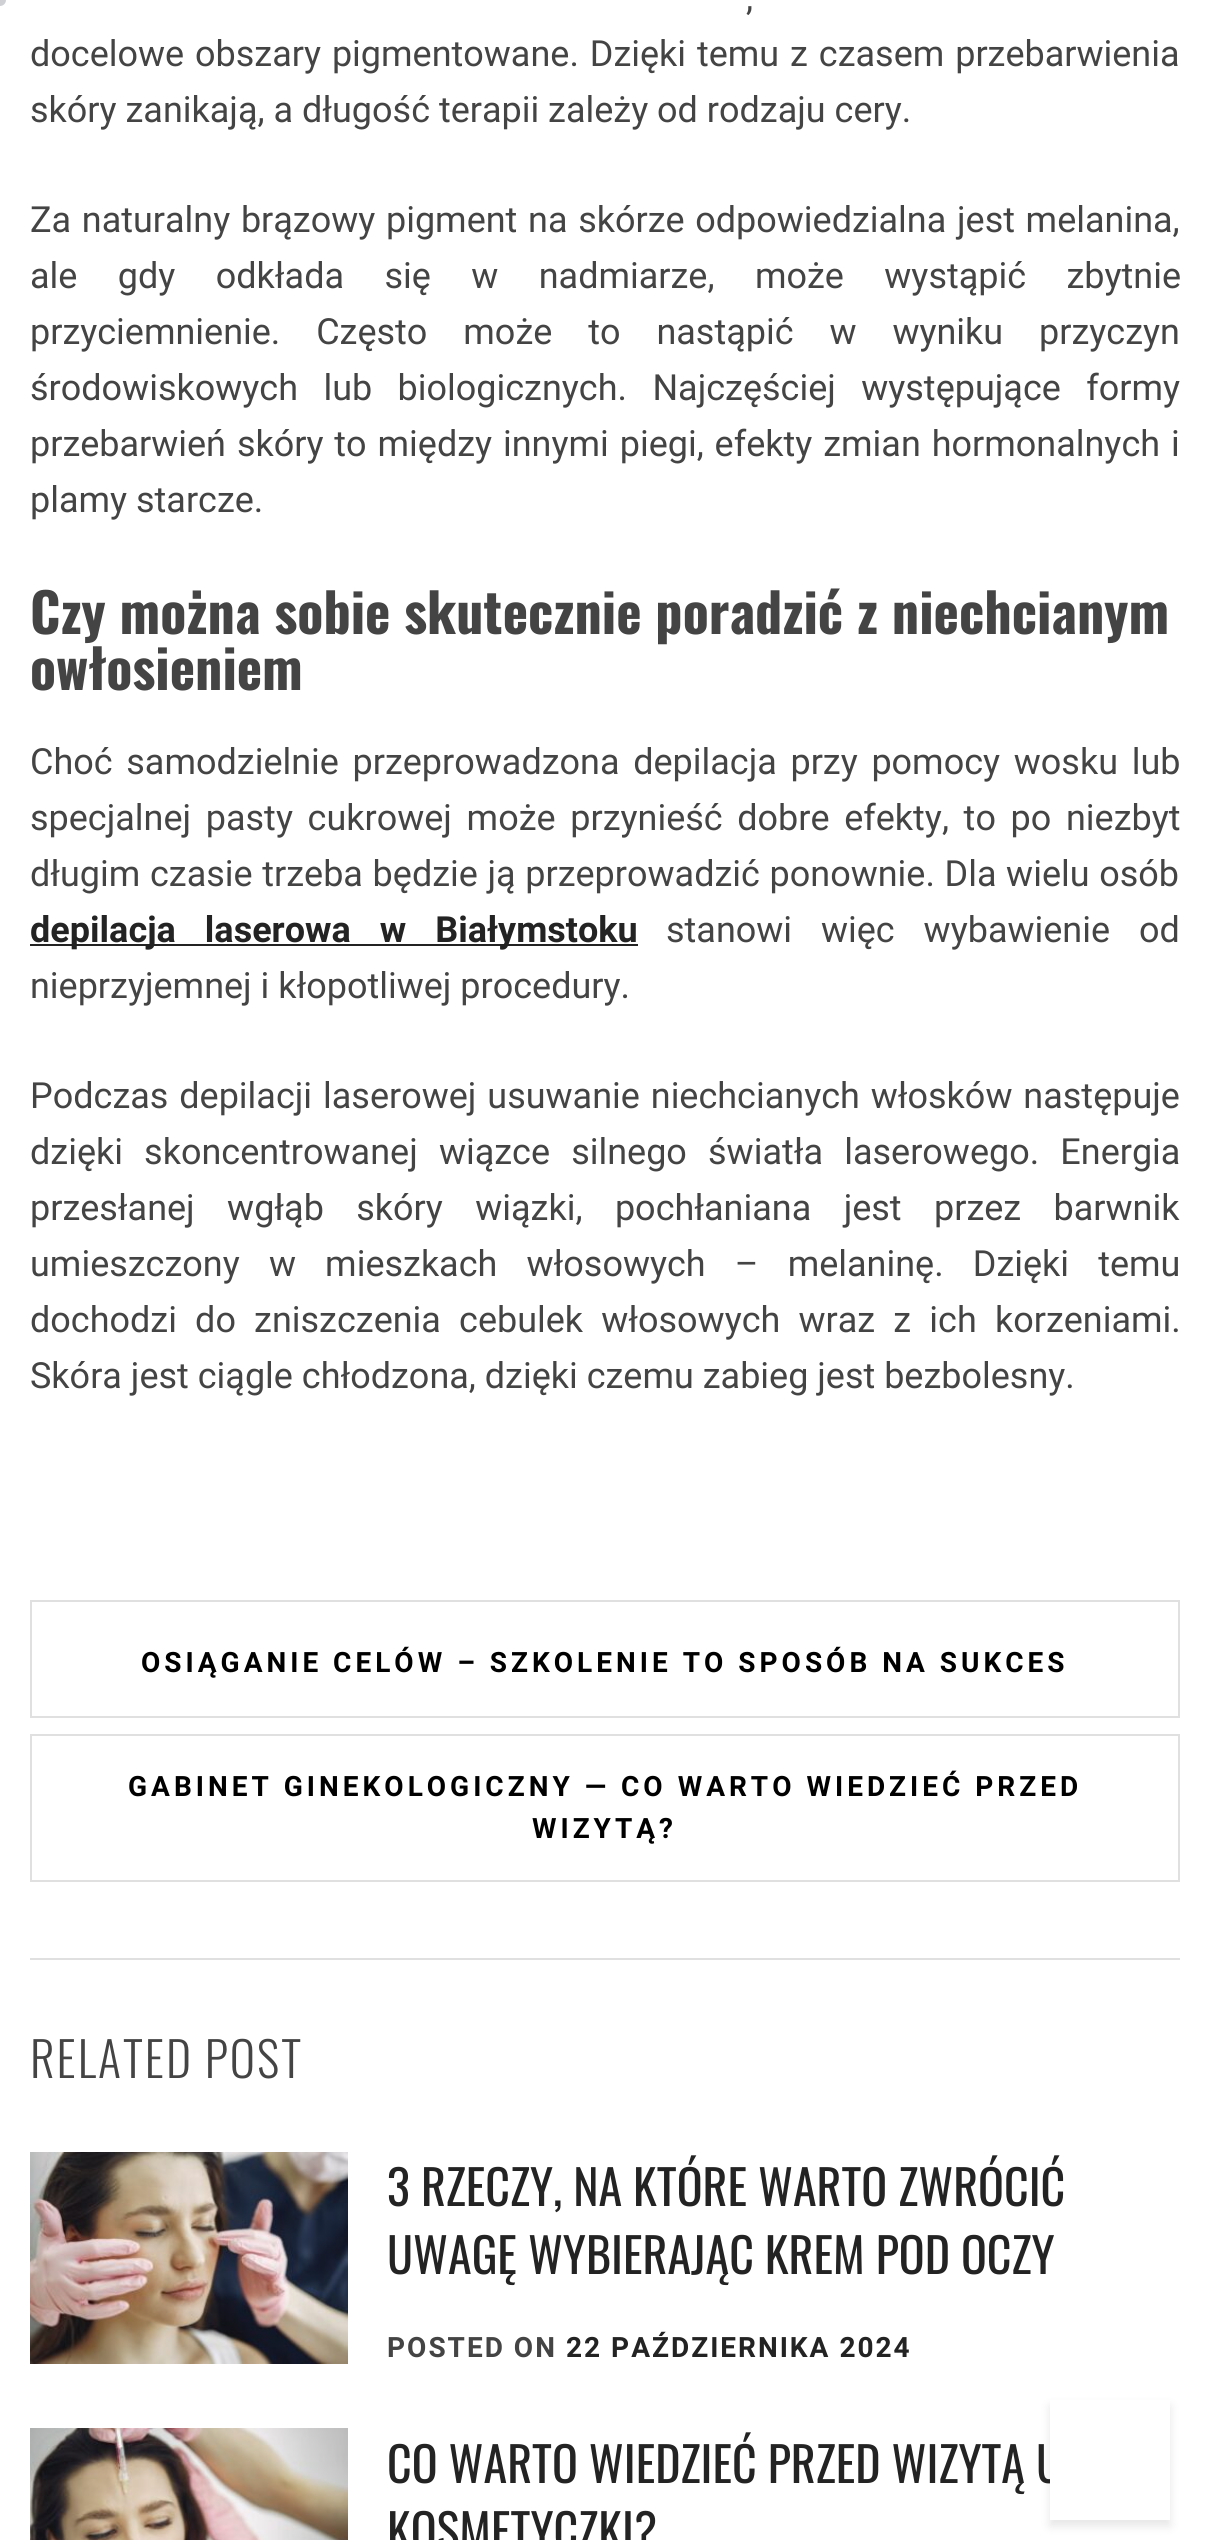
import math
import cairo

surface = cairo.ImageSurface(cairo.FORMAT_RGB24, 1209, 2540)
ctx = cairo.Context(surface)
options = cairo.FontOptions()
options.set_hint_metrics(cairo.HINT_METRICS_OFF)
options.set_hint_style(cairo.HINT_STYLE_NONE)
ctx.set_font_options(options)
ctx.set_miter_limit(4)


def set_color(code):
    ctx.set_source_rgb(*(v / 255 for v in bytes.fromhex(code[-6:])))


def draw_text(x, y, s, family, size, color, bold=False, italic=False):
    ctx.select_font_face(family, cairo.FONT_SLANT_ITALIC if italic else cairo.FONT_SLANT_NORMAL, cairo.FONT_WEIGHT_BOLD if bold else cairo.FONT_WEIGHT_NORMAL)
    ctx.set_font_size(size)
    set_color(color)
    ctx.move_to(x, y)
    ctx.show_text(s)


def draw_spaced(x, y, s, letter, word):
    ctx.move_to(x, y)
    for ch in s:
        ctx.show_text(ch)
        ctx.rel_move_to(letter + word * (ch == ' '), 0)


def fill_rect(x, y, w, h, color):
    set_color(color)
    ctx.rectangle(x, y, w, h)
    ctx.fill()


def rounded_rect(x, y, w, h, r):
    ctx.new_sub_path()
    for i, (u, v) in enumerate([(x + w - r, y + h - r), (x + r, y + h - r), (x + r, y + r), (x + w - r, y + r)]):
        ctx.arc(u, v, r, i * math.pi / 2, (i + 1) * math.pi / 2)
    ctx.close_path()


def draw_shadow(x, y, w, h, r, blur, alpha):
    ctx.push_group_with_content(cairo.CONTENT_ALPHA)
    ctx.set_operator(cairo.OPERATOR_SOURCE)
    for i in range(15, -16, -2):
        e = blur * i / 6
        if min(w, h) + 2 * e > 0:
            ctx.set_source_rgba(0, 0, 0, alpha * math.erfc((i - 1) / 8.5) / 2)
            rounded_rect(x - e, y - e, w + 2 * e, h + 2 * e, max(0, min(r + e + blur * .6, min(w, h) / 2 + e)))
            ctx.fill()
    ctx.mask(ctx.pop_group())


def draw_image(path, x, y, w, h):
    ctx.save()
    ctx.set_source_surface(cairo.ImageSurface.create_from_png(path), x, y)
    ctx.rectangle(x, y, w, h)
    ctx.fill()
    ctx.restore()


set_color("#ffffff")
ctx.paint()
set_color("#ced0d4")
ctx.arc(0, 0, 6, 0, 2 * math.pi)
ctx.fill()
ctx.select_font_face("Roboto")
ctx.set_font_size(36)
set_color("#444444")
draw_spaced(746, 10, ",", 0, 5)
draw_spaced(30, 66, "docelowe obszary pigmentowane. Dzięki temu z czasem przebarwienia", 0, 2)
draw_text(30, 122, "skóry zanikają, a długość terapii zależy od rodzaju cery.", "Roboto", 36, "#444444")
draw_spaced(30, 232, "Za naturalny brązowy pigment na skórze odpowiedzialna jest melanina,", 0, 1.75)
draw_spaced(30, 288, "ale gdy odkłada się w nadmiarze, może wystąpić zbytnie", 0, 31.5)
draw_spaced(30, 344, "przyciemnienie. Często może to nastąpić w wyniku przyczyn", 0, 27)
draw_spaced(30, 400, "środowiskowych lub biologicznych. Najczęściej występujące formy", 0, 16.5)
draw_spaced(30, 456, "przebarwień skóry to między innymi piegi, efekty zmian hormonalnych i", 0, 2)
draw_text(30, 512, "plamy starcze.", "Roboto", 36, "#444444")
draw_text(30, 634, "Czy można sobie skutecznie poradzić z niechcianym", "Oswald", 54, "#444444", bold=True)
draw_text(30, 690, "owłosieniem", "Oswald", 54, "#444444", bold=True)
ctx.select_font_face("Roboto")
ctx.set_font_size(36)
draw_spaced(30, 774, "Choć samodzielnie przeprowadzona depilacja przy pomocy wosku lub", 0, 4.75)
draw_spaced(30, 830, "specjalnej pasty cukrowej może przynieść dobre efekty, to po niezbyt", 0, 5.75)
draw_spaced(30, 886, "długim czasie trzeba będzie ją przeprowadzić ponownie. Dla wielu osób", 0, 0.75)
fill_rect(30, 944, 608, 2, "#232323")
ctx.select_font_face("Roboto", cairo.FONT_SLANT_NORMAL, cairo.FONT_WEIGHT_BOLD)
draw_spaced(30, 942, "depilacja laserowa w Białymstoku", 0, 20)
ctx.select_font_face("Roboto")
set_color("#444444")
draw_spaced(666, 942, "stanowi więc wybawienie od", 0, 20)
draw_text(30, 998, "nieprzyjemnej i kłopotliwej procedury.", "Roboto", 36, "#444444")
draw_spaced(30, 1108, "Podczas depilacji laserowej usuwanie niechcianych włosków następuje", 0, 2)
draw_spaced(30, 1164, "dzięki skoncentrowanej wiązce silnego światła laserowego. Energia", 0, 12.25)
draw_spaced(30, 1220, "przesłanej wgłąb skóry wiązki, pochłaniana jest przez barwnik", 0, 23.5)
draw_spaced(30, 1276, "umieszczony w mieszkach włosowych – melaninę. Dzięki temu", 0, 20.25)
draw_spaced(30, 1332, "dochodzi do zniszczenia cebulek włosowych wraz z ich korzeniami.", 0, 9.25)
draw_text(30, 1388, "Skóra jest ciągle chłodzona, dzięki czemu zabieg jest bezbolesny.", "Roboto", 36, "#444444")
ctx.rectangle(31, 1601, 1148, 116)
set_color("#e0e0e0")
ctx.stroke()
ctx.select_font_face("Roboto", cairo.FONT_SLANT_NORMAL, cairo.FONT_WEIGHT_BOLD)
ctx.set_font_size(28)
set_color("#000000")
draw_spaced(141, 1672, "OSIĄGANIE CELÓW – SZKOLENIE TO SPOSÓB NA SUKCES", 4, 0)
ctx.rectangle(31, 1735, 1148, 146)
set_color("#e0e0e0")
ctx.stroke()
set_color("#000000")
draw_spaced(128, 1796, "GABINET GINEKOLOGICZNY — CO WARTO WIEDZIEĆ PRZED", 4, 0)
draw_spaced(532, 1838, "WIZYTĄ?", 4, 0)
fill_rect(30, 1958, 1150, 2, "#e0e0e0")
ctx.select_font_face("Oswald Light")
ctx.set_font_size(48)
set_color("#444444")
draw_spaced(30, 2078, "RELATED POST", 2, 0)
draw_image("assets/img1.png", 30, 2152, 318, 212)
draw_text(387, 2206, "3 RZECZY, NA KTÓRE WARTO ZWRÓCIĆ", "Oswald", 48, "#232323")
draw_text(387, 2274, "UWAGĘ WYBIERAJĄC KREM POD OCZY", "Oswald", 48, "#232323")
ctx.select_font_face("Roboto", cairo.FONT_SLANT_NORMAL, cairo.FONT_WEIGHT_BOLD)
ctx.set_font_size(28)
set_color("#444444")
draw_spaced(387, 2357, "POSTED ON", 2, 0)
set_color("#232323")
draw_spaced(566, 2357, "22 PAŹDZIERNIKA 2024", 2, 0)
draw_image("assets/img2.png", 30, 2428, 318, 112)
draw_text(387, 2483, "CO WARTO WIEDZIEĆ PRZED WIZYTĄ U", "Oswald", 48, "#232323")
draw_text(387, 2550, "KOSMETYCZKI?", "Oswald", 48, "#232323")
set_color("#000000")
draw_shadow(1050, 2406, 120, 120, 0, 5, 0.1)
fill_rect(1050, 2400, 120, 120, "#ffffff")
surface.write_to_png("output.png")
